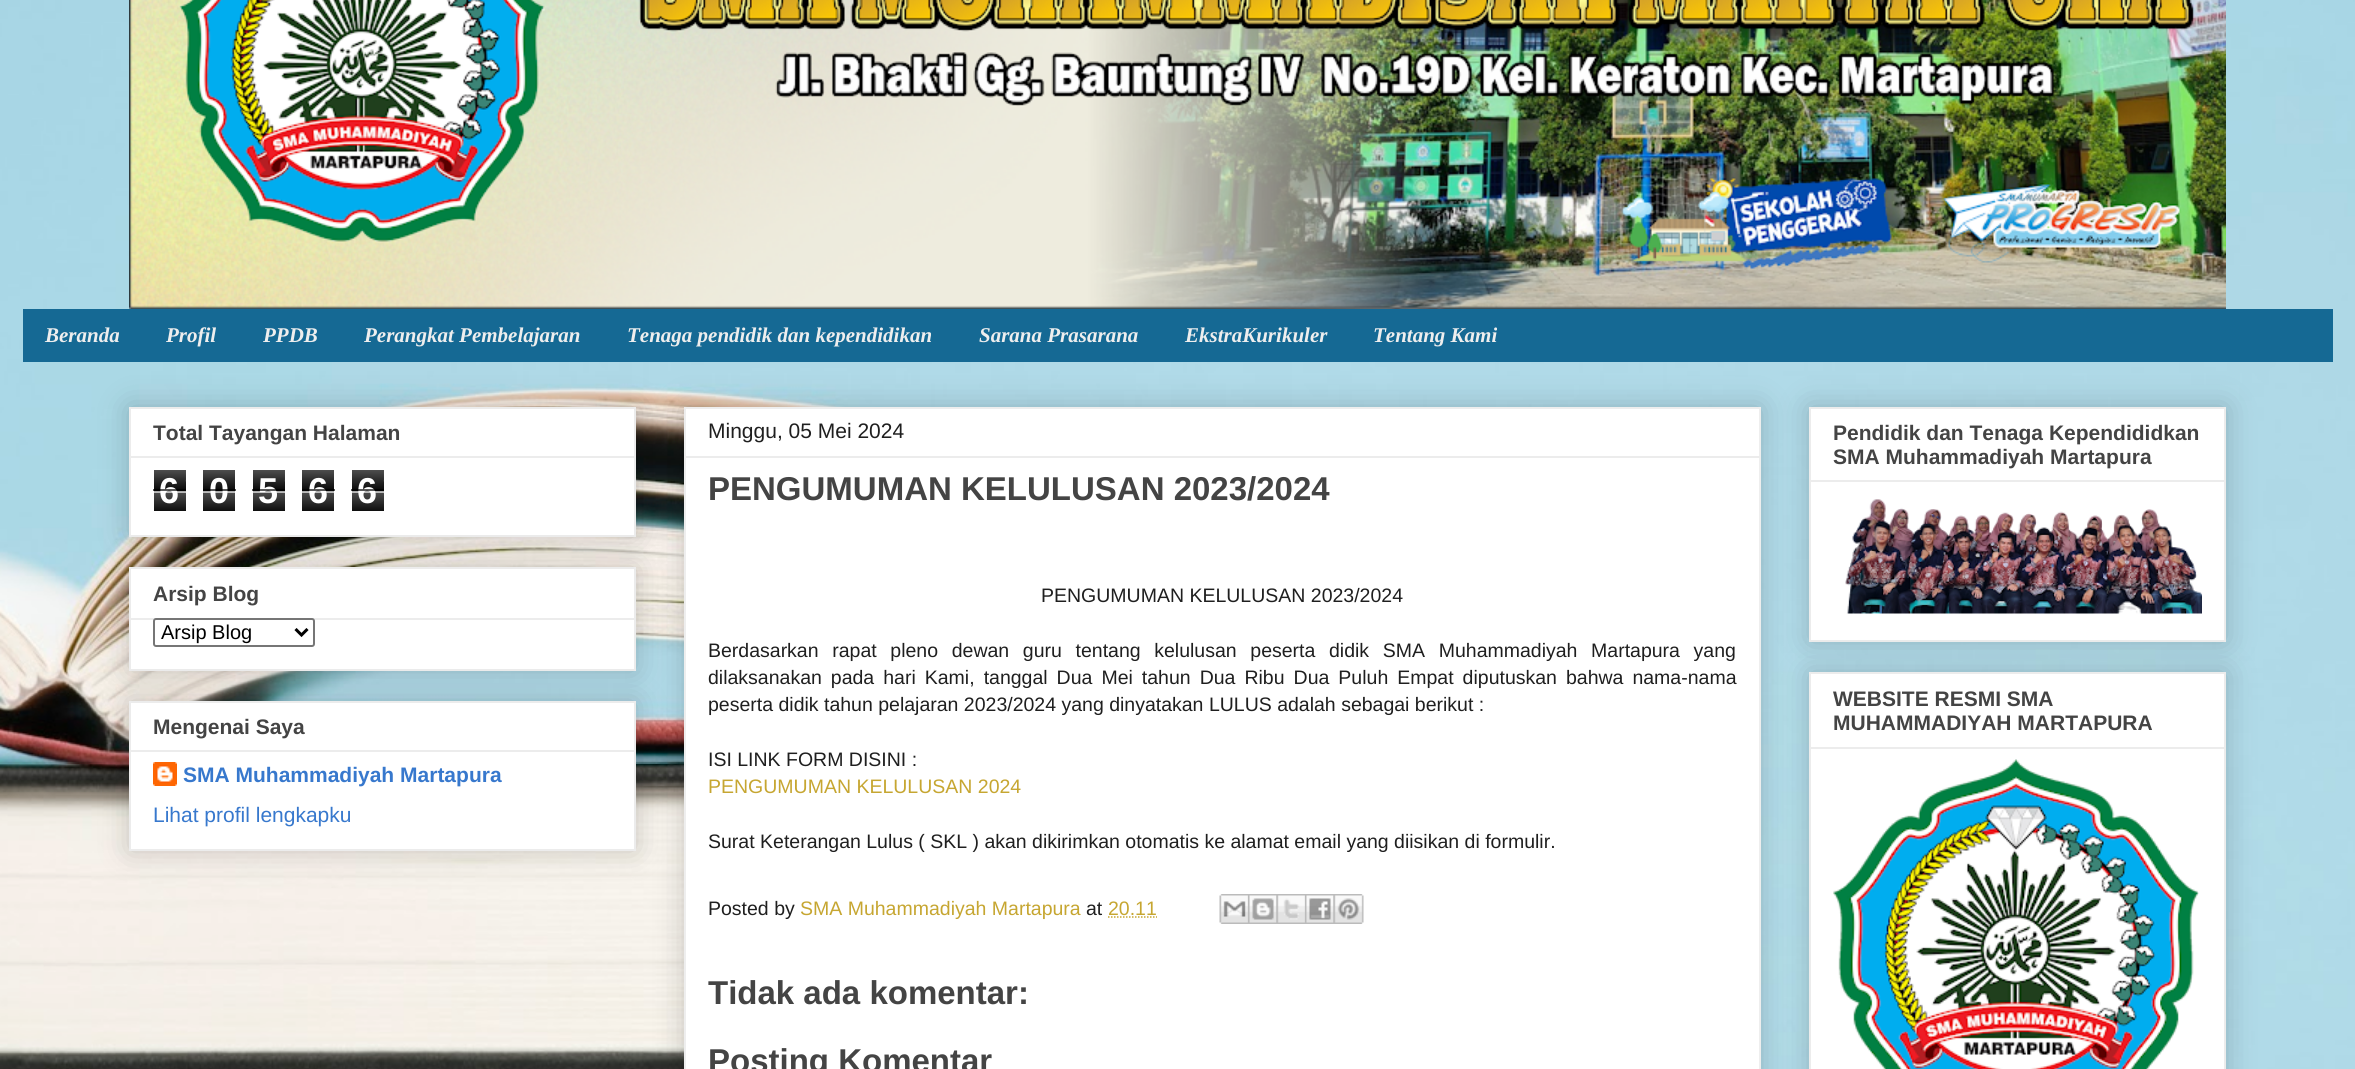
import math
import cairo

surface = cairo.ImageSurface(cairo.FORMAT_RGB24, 2355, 1069)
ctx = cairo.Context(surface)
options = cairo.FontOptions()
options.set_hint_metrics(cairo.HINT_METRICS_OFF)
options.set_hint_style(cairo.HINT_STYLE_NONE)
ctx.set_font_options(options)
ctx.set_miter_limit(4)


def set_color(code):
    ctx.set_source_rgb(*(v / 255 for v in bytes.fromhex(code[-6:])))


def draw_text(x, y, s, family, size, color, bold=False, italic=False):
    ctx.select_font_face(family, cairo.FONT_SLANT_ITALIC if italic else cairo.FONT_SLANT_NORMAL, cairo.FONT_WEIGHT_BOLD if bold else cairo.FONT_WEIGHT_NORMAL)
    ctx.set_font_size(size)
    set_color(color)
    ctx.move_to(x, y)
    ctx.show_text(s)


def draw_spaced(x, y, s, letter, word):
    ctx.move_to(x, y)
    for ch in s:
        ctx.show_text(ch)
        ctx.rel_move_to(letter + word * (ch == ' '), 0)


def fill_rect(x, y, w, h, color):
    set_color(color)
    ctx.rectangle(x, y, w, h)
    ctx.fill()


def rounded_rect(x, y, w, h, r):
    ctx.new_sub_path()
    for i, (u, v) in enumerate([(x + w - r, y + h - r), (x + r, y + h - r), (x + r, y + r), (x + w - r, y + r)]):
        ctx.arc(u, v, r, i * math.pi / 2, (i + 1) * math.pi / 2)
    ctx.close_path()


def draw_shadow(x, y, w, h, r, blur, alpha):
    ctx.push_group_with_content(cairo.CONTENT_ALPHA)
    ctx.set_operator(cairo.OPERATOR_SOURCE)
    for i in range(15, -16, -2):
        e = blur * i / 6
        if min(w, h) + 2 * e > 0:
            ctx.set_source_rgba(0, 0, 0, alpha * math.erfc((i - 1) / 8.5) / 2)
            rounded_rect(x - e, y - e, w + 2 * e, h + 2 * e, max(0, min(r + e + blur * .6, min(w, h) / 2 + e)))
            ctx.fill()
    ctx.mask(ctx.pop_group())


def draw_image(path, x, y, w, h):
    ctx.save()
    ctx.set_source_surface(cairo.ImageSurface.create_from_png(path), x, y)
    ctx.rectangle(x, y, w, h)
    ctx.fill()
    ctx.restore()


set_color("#ffffff")
ctx.paint()
draw_image("assets/img1.png", 0, 0, 2355, 1069)
draw_image("assets/img2.png", 129, 0, 2097, 309)
fill_rect(23, 309, 2310, 53, "#156994")
draw_text(45, 342, "Beranda", "Liberation Serif", 21, "#eeeeee", bold=True, italic=True)
draw_text(166, 342, "Profil", "Liberation Serif", 21, "#eeeeee", bold=True, italic=True)
draw_text(263, 342, "PPDB", "Liberation Serif", 21, "#eeeeee", bold=True, italic=True)
draw_text(364, 342, "Perangkat Pembelajaran", "Liberation Serif", 21, "#eeeeee", bold=True, italic=True)
draw_text(627, 342, "Tenaga pendidik dan kependidikan", "Liberation Serif", 21, "#eeeeee", bold=True, italic=True)
draw_text(979, 342, "Sarana Prasarana", "Liberation Serif", 21, "#eeeeee", bold=True, italic=True)
draw_text(1185, 342, "EkstraKurikuler", "Liberation Serif", 21, "#eeeeee", bold=True, italic=True)
draw_text(1373, 342, "Tentang Kami", "Liberation Serif", 21, "#eeeeee", bold=True, italic=True)
set_color("#000000")
draw_shadow(129, 407, 507, 130, 0, 15, 0.2)
set_color("#ffffff")
ctx.rectangle(130, 408, 505, 128)
ctx.fill_preserve()
set_color("#ececec")
ctx.stroke()
draw_text(153, 440, "Total Tayangan Halaman", "Liberation Sans", 21, "#444444", bold=True)
fill_rect(131, 456, 504, 2, "#ececec")
draw_image("assets/img3.png", 154, 470, 32, 41)
draw_text(159, 503, "6", "Liberation Sans", 36, "#ffffff", bold=True)
ctx.set_source_rgba(0, 0, 0, 0.65)
ctx.rectangle(153, 489, 33, 2)
ctx.fill()
ctx.set_source_rgba(1, 1, 1, 0.65)
ctx.rectangle(153, 491, 33, 2)
ctx.fill()
draw_image("assets/img4.png", 203, 470, 32, 41)
draw_text(209, 503, "0", "Liberation Sans", 36, "#ffffff", bold=True)
ctx.set_source_rgba(0, 0, 0, 0.65)
ctx.rectangle(203, 489, 33, 2)
ctx.fill()
ctx.set_source_rgba(1, 1, 1, 0.65)
ctx.rectangle(203, 491, 33, 2)
ctx.fill()
draw_image("assets/img3.png", 253, 470, 32, 41)
draw_text(258, 503, "5", "Liberation Sans", 36, "#ffffff", bold=True)
ctx.set_source_rgba(0, 0, 0, 0.65)
ctx.rectangle(252, 489, 33, 2)
ctx.fill()
ctx.set_source_rgba(1, 1, 1, 0.65)
ctx.rectangle(252, 491, 33, 2)
ctx.fill()
draw_image("assets/img4.png", 302, 470, 32, 41)
draw_text(308, 503, "6", "Liberation Sans", 36, "#ffffff", bold=True)
ctx.set_source_rgba(0, 0, 0, 0.65)
ctx.rectangle(302, 489, 33, 2)
ctx.fill()
ctx.set_source_rgba(1, 1, 1, 0.65)
ctx.rectangle(302, 491, 33, 2)
ctx.fill()
draw_image("assets/img3.png", 352, 470, 32, 41)
draw_text(357, 503, "6", "Liberation Sans", 36, "#ffffff", bold=True)
ctx.set_source_rgba(0, 0, 0, 0.65)
ctx.rectangle(351, 489, 33, 2)
ctx.fill()
ctx.set_source_rgba(1, 1, 1, 0.65)
ctx.rectangle(351, 491, 33, 2)
ctx.fill()
set_color("#000000")
draw_shadow(129, 567, 507, 104, 0, 15, 0.2)
set_color("#ffffff")
ctx.rectangle(130, 568, 505, 102)
ctx.fill_preserve()
set_color("#ececec")
ctx.stroke()
draw_text(153, 601, "Arsip Blog", "Liberation Sans", 21, "#444444", bold=True)
fill_rect(131, 618, 504, 2, "#ececec")
set_color("#ffffff")
rounded_rect(154, 619, 160, 27, 2)
ctx.fill_preserve()
set_color("#767676")
ctx.stroke()
ctx.new_path()
ctx.move_to(295.5, 629)
ctx.line_to(301.5, 635)
ctx.line_to(307.5, 629)
set_color("#000000")
ctx.set_line_width(3)
ctx.stroke()
draw_text(161, 639, "Arsip Blog", "Liberation Sans", 20, "#000000")
set_color("#000000")
draw_shadow(129, 701, 507, 150, 0, 15, 0.2)
set_color("#ffffff")
ctx.rectangle(130, 702, 505, 148)
ctx.fill_preserve()
set_color("#ececec")
ctx.set_line_width(2)
ctx.stroke()
draw_text(153, 734, "Mengenai Saya", "Liberation Sans", 21, "#444444", bold=True)
fill_rect(131, 750, 504, 2, "#ececec")
draw_image("assets/img5.png", 153, 762, 24, 24)
draw_text(183, 782, "SMA Muhammadiyah Martapura", "Liberation Sans", 21, "#3778cd", bold=True)
draw_text(153, 822, "Lihat profil lengkapku", "Liberation Sans", 21, "#3778cd")
set_color("#000000")
draw_shadow(684, 407, 1077, 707, 0, 15, 0.2)
set_color("#ffffff")
ctx.rectangle(685, 408, 1075, 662)
ctx.fill_preserve()
set_color("#eeeeee")
ctx.stroke()
draw_text(708, 438, "Minggu, 05 Mei 2024", "Liberation Sans", 21, "#1f1f1f")
fill_rect(686, 456, 1074, 2, "#ececec")
draw_text(708, 500, "PENGUMUMAN KELULUSAN 2023/2024", "Liberation Sans", 33, "#444444", bold=True)
draw_text(1041, 602, "PENGUMUMAN KELULUSAN 2023/2024", "Liberation Sans", 19.5, "#1f1f1f")
draw_spaced(708, 657, "Berdasarkan rapat pleno dewan guru tentang kelulusan peserta didik SMA Muhammadiyah Martapura yang", 0, 8.25)
draw_spaced(708, 684, "dilaksanakan pada hari Kami, tanggal Dua Mei tahun Dua Ribu Dua Puluh Empat diputuskan bahwa nama-nama", 0, 3.6)
draw_text(708, 711, "peserta didik tahun pelajaran 2023/2024 yang dinyatakan LULUS adalah sebagai berikut :", "Liberation Sans", 19.5, "#1f1f1f")
draw_text(708, 766, "ISI LINK FORM DISINI :", "Liberation Sans", 19.5, "#1f1f1f")
draw_text(708, 793, "PENGUMUMAN KELULUSAN 2024", "Liberation Sans", 19.5, "#c6a631")
draw_text(708, 848, "Surat Keterangan Lulus ( SKL ) akan dikirimkan otomatis ke alamat email yang diisikan di formulir.", "Liberation Sans", 19.5, "#1f1f1f")
draw_text(708, 915, "Posted by", "Liberation Sans", 19.5, "#1f1f1f")
draw_text(800, 915, "SMA Muhammadiyah Martapura", "Liberation Sans", 19.5, "#c6a631")
draw_text(1086, 915, "at", "Liberation Sans", 19.5, "#1f1f1f")
draw_text(1108, 915, "20.11", "Liberation Sans", 19.5, "#c6a631")
ctx.new_path()
ctx.move_to(1108, 917)
ctx.line_to(1157, 917)
ctx.set_line_width(1.5)
ctx.set_dash([1.5, 1.5])
ctx.stroke()
draw_image("assets/img6.png", 1219, 894, 29, 30)
draw_image("assets/img7.png", 1248, 894, 29, 30)
draw_image("assets/img8.png", 1276, 894, 29, 30)
draw_image("assets/img9.png", 1305, 894, 29, 30)
draw_image("assets/img10.png", 1333, 894, 31, 30)
draw_text(708, 1004, "Tidak ada komentar:", "Liberation Sans", 33, "#444444", bold=True)
draw_text(708, 1072, "Posting Komentar", "Liberation Sans", 33, "#444444", bold=True)
set_color("#000000")
draw_shadow(1809, 407, 417, 235, 0, 15, 0.2)
set_color("#ffffff")
ctx.rectangle(1810, 408, 415, 233)
ctx.fill_preserve()
set_color("#ececec")
ctx.set_line_width(2)
ctx.set_dash([])
ctx.stroke()
draw_text(1833, 440, "Pendidik dan Tenaga Kependididkan", "Liberation Sans", 21, "#444444", bold=True)
draw_text(1833, 464, "SMA Muhammadiyah Martapura", "Liberation Sans", 21, "#444444", bold=True)
fill_rect(1811, 480, 414, 2, "#ececec")
draw_image("assets/img11.png", 1845, 499, 357, 115)
set_color("#000000")
draw_shadow(1809, 672, 417, 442, 0, 15, 0.2)
set_color("#ffffff")
ctx.rectangle(1810, 673, 415, 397)
ctx.fill_preserve()
set_color("#ececec")
ctx.stroke()
draw_text(1833, 706, "WEBSITE RESMI SMA", "Liberation Sans", 21, "#444444", bold=True)
draw_text(1833, 730, "MUHAMMADIYAH MARTAPURA", "Liberation Sans", 21, "#444444", bold=True)
fill_rect(1811, 747, 414, 2, "#ececec")
draw_image("assets/img12.png", 1833, 759, 366, 310)
surface.write_to_png("output.png")
